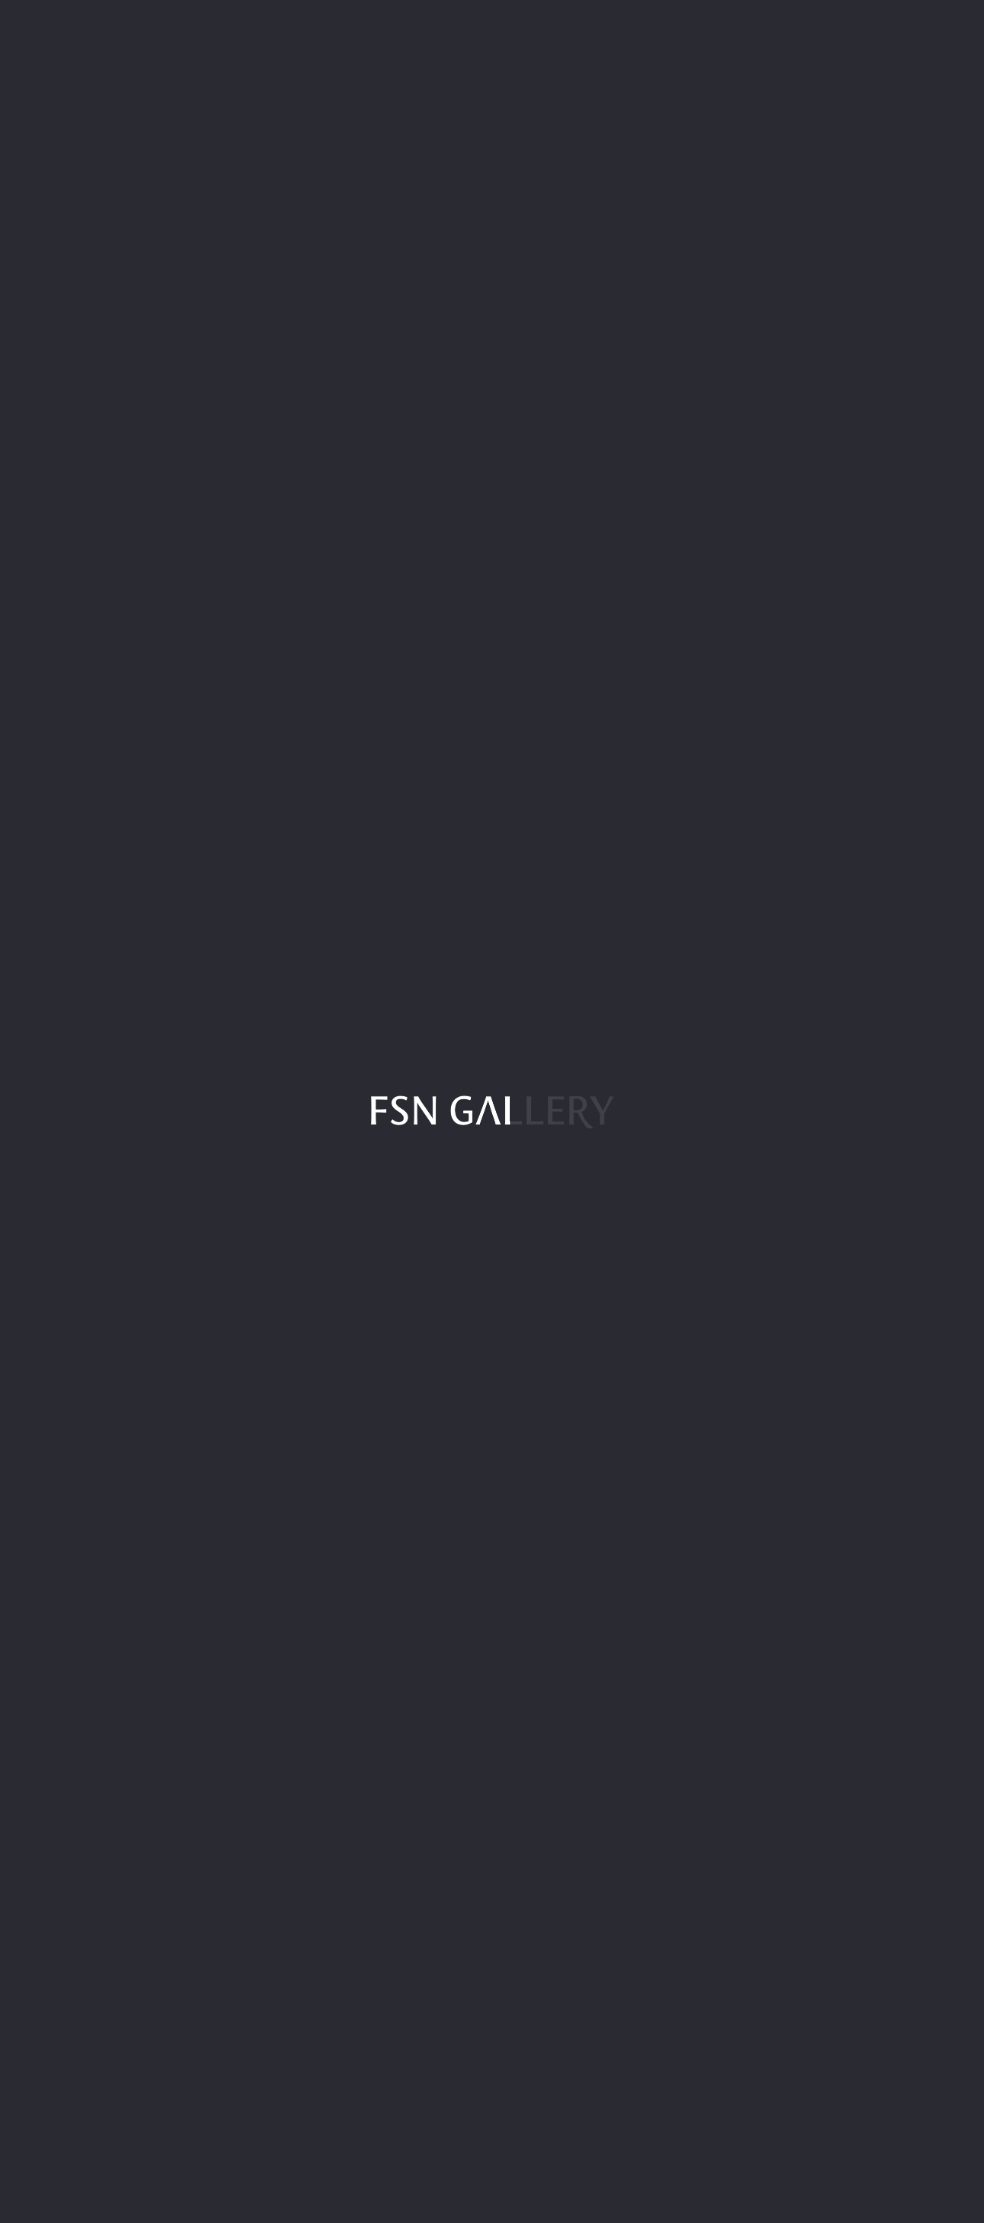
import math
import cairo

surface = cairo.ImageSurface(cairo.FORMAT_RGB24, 984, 2223)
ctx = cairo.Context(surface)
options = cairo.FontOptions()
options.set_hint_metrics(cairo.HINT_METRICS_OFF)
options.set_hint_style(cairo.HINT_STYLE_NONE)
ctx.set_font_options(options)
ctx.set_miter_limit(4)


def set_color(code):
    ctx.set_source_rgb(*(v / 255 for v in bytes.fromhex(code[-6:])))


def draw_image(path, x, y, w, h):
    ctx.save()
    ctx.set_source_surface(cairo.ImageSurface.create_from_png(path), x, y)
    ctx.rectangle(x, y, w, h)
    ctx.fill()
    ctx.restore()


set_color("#2a2a32")
ctx.paint()
draw_image("assets/img1.png", 371, 1095, 243, 34)
draw_image("assets/img2.png", 371, 1095, 140, 31)
surface.write_to_png("output.png")
